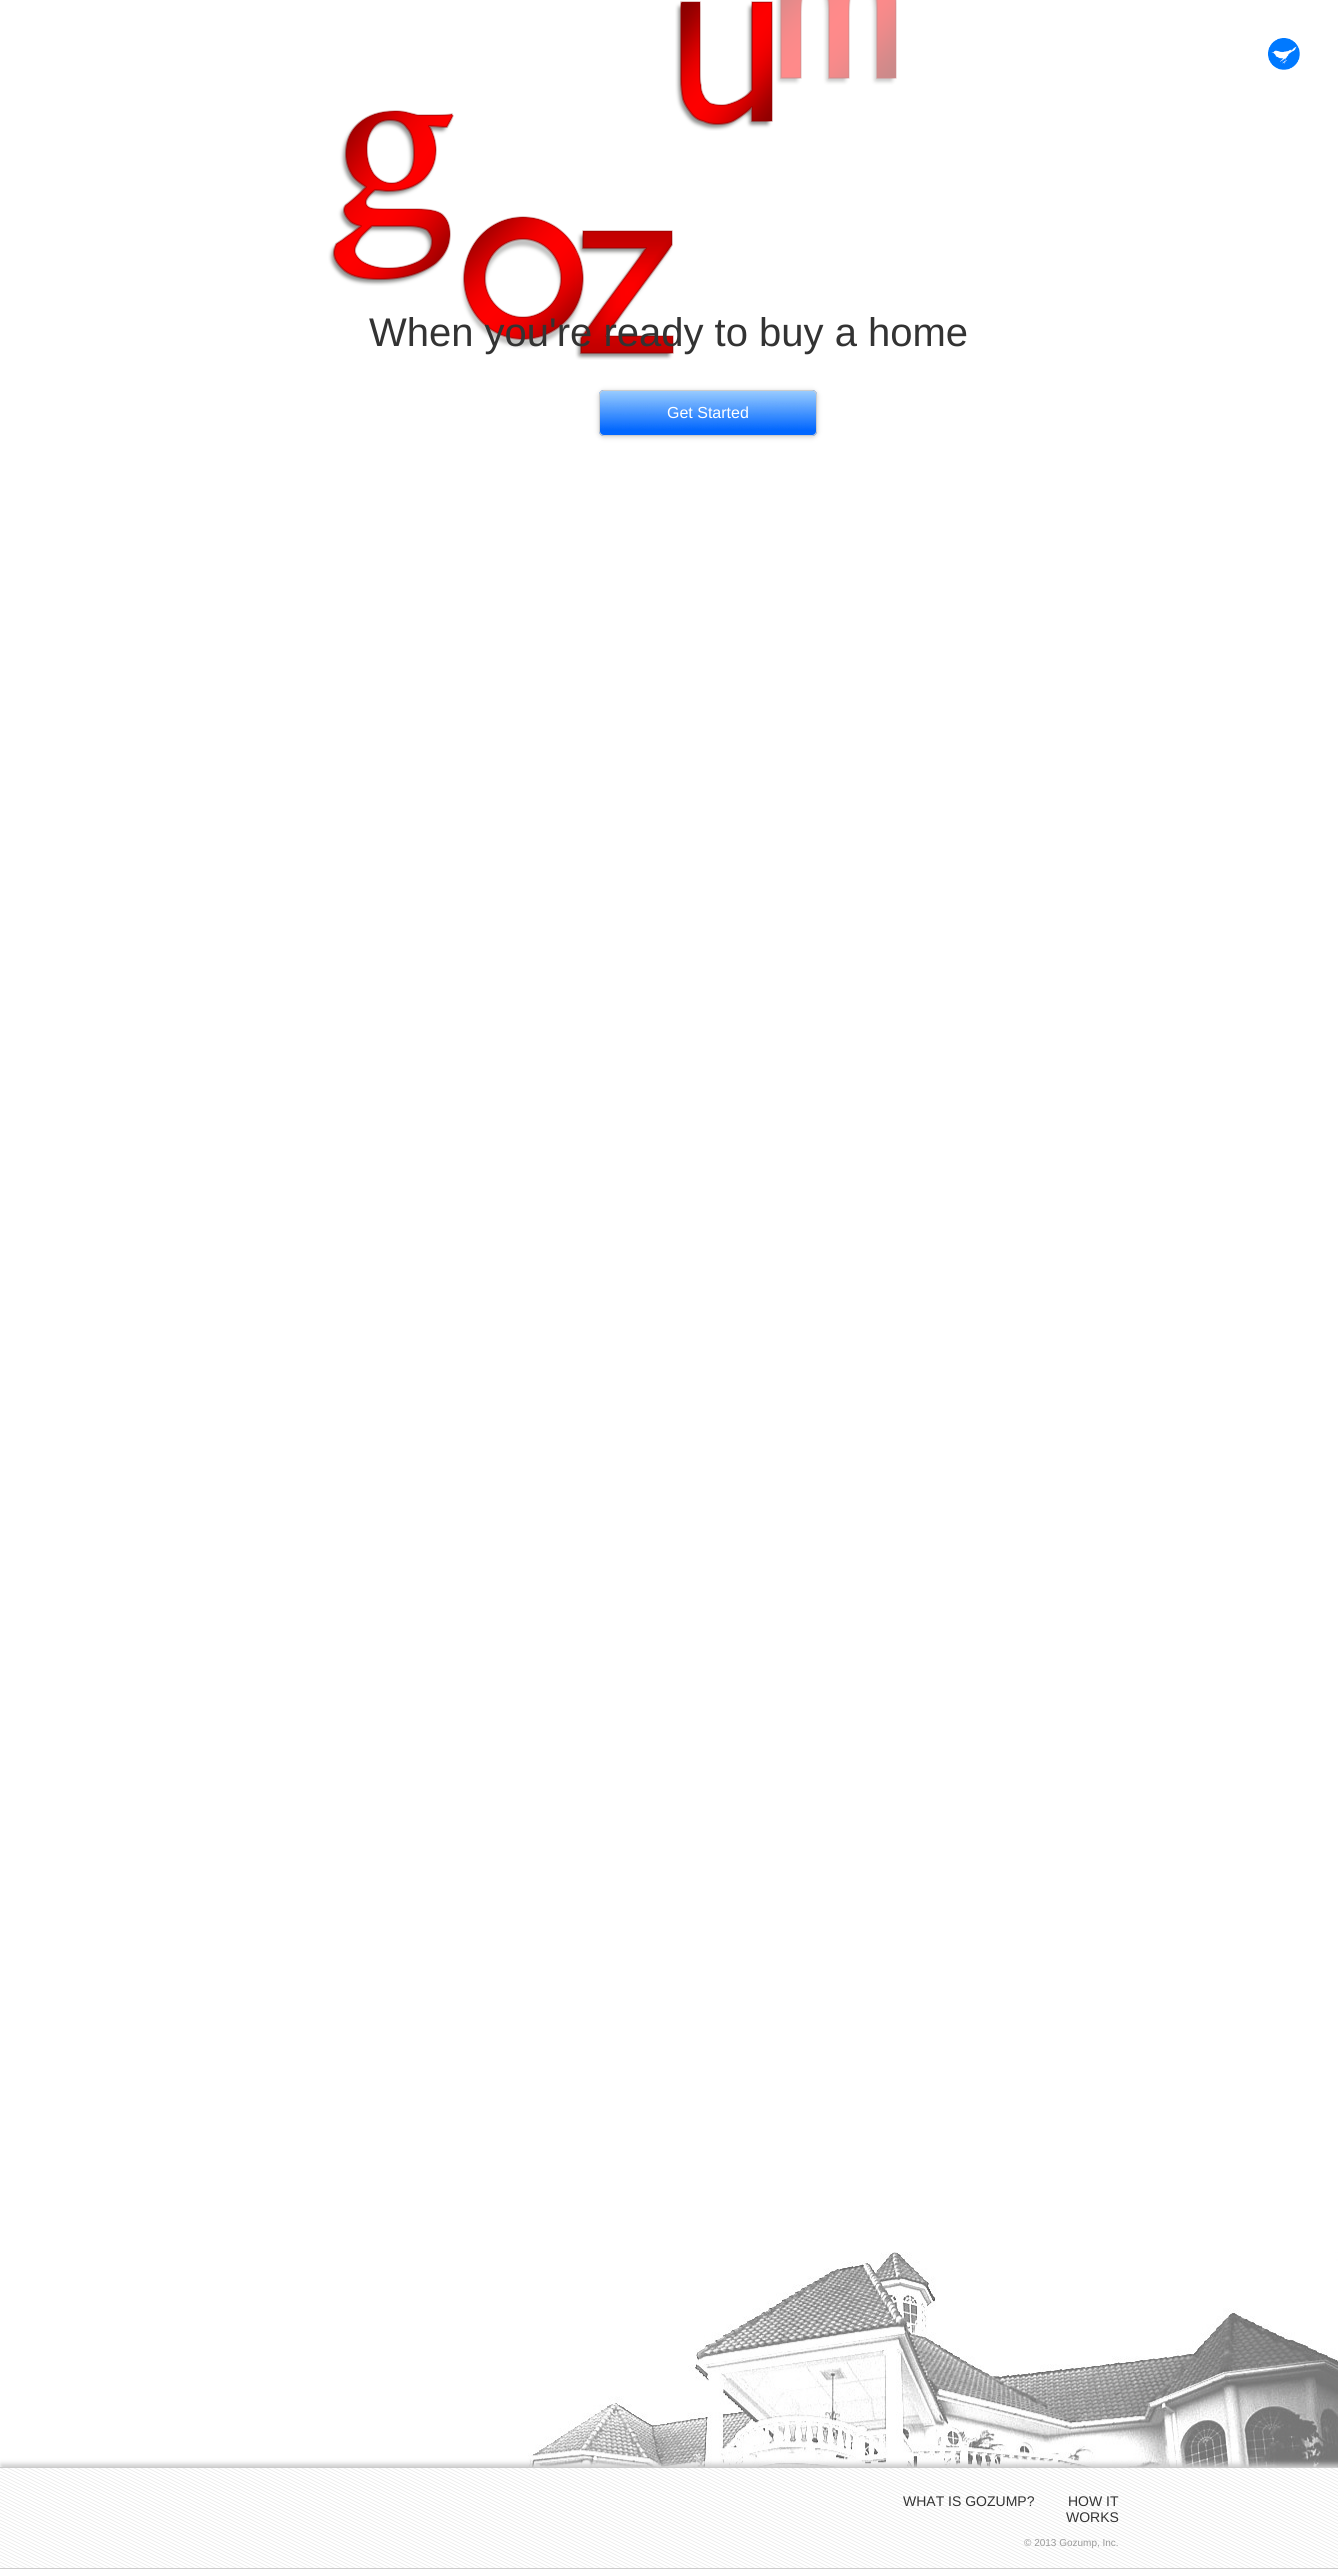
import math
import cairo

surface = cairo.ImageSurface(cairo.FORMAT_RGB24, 1338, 2569)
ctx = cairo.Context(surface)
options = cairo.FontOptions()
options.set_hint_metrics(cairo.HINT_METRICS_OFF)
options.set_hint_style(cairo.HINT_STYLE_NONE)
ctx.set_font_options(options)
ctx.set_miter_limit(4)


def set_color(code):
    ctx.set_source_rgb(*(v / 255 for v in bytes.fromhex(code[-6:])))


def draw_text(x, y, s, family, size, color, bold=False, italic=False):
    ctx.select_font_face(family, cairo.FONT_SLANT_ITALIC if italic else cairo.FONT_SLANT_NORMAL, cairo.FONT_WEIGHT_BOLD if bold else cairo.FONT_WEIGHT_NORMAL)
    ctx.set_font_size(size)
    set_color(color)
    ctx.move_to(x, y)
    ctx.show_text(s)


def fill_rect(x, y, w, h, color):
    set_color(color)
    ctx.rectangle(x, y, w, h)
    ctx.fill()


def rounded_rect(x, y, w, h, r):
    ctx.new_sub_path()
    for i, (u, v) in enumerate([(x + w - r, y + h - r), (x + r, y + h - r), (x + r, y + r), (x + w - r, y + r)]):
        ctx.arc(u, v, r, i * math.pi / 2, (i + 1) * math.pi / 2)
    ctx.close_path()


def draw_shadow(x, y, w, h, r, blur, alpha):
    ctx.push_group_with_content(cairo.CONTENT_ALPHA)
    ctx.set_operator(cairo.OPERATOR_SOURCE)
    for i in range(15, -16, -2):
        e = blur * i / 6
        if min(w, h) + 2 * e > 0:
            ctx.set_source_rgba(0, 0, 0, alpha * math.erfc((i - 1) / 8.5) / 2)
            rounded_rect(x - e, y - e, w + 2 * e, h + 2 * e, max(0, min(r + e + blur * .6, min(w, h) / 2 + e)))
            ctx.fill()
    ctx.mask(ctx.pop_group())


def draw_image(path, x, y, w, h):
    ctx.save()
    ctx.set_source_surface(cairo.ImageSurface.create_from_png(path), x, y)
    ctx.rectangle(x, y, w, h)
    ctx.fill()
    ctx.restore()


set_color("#ffffff")
ctx.paint()
draw_image("assets/img1.png", 216, 2252, 1122, 215)
draw_image("assets/img2.png", 675, 1, 98, 130)
draw_image("assets/img3.png", 776, 0, 121, 85)
draw_image("assets/img4.png", 328, 110, 126, 176)
draw_image("assets/img5.png", 460, 216, 125, 133)
draw_image("assets/img6.png", 575, 230, 99, 130)
draw_image("assets/img7.png", 1268, 38, 32, 32)
draw_text(369, 346, "When you're ready to buy a home", "Liberation Sans", 40, "#333333")
set_color("#cccccc")
draw_shadow(599, 391, 218, 46, 5, 2.5, 1)
set_color("#0066ff")
rounded_rect(599, 390, 218, 46, 5)
ctx.fill()
draw_image("assets/img8.png", 599, 391, 218, 39)
rounded_rect(599.5, 390.5, 217, 45, 4.5)
set_color("#cccccc")
ctx.set_line_width(1)
ctx.stroke()
draw_text(667, 418, "Get Started", "Liberation Sans", 16, "#ffffff")
set_color("#cccccc")
draw_shadow(1, 2464, 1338, 102, 0, 2.5, 1)
draw_image("assets/img9.png", 0, 2468, 1338, 100)
fill_rect(0, 2467, 1338, 1, "#cccccc")
fill_rect(0, 2568, 1338, 1, "#cccccc")
draw_text(903, 2506, "WHAT IS GOZUMP?", "Liberation Sans", 14, "#333333")
draw_text(1068, 2506, "HOW IT", "Liberation Sans", 14, "#333333")
draw_text(1066, 2522, "WORKS", "Liberation Sans", 14, "#333333")
draw_text(1024, 2546, "© 2013 Gozump, Inc.", "Liberation Sans", 10, "#999999")
surface.write_to_png("output.png")
